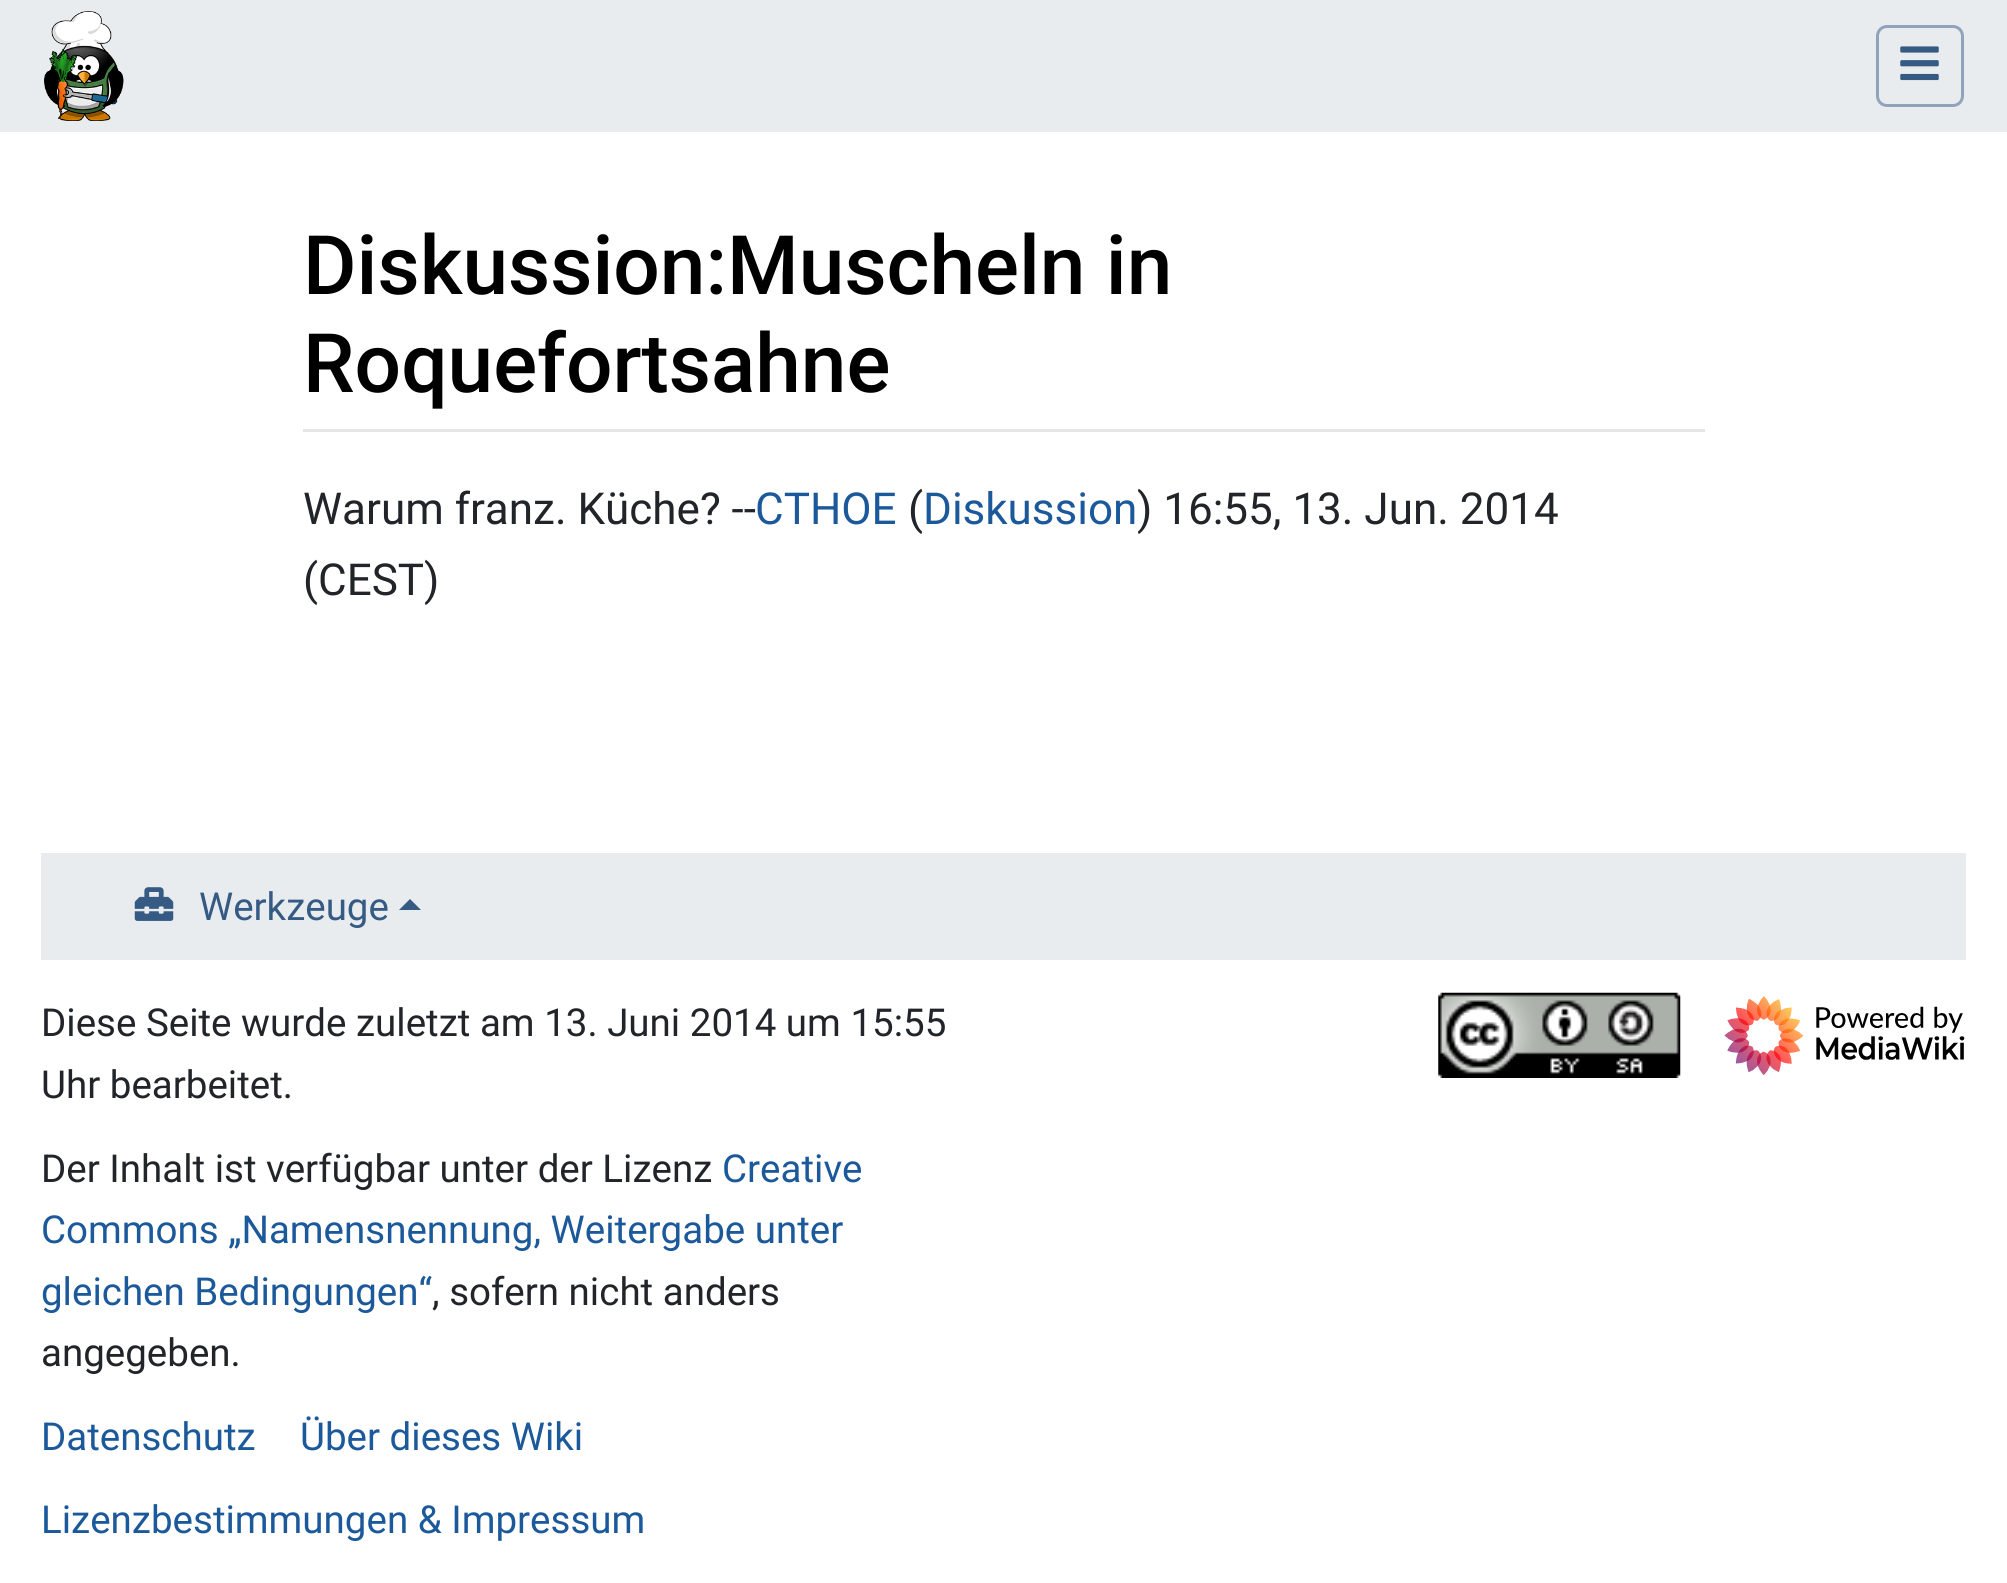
import math
import cairo

surface = cairo.ImageSurface(cairo.FORMAT_RGB24, 2007, 1583)
ctx = cairo.Context(surface)
options = cairo.FontOptions()
options.set_hint_metrics(cairo.HINT_METRICS_OFF)
options.set_hint_style(cairo.HINT_STYLE_NONE)
ctx.set_font_options(options)
ctx.set_miter_limit(4)


def set_color(code):
    ctx.set_source_rgb(*(v / 255 for v in bytes.fromhex(code[-6:])))


def draw_text(x, y, s, family, size, color, bold=False, italic=False):
    ctx.select_font_face(family, cairo.FONT_SLANT_ITALIC if italic else cairo.FONT_SLANT_NORMAL, cairo.FONT_WEIGHT_BOLD if bold else cairo.FONT_WEIGHT_NORMAL)
    ctx.set_font_size(size)
    set_color(color)
    ctx.move_to(x, y)
    ctx.show_text(s)


def fill_rect(x, y, w, h, color):
    set_color(color)
    ctx.rectangle(x, y, w, h)
    ctx.fill()


def rounded_rect(x, y, w, h, r):
    ctx.new_sub_path()
    for i, (u, v) in enumerate([(x + w - r, y + h - r), (x + r, y + h - r), (x + r, y + r), (x + w - r, y + r)]):
        ctx.arc(u, v, r, i * math.pi / 2, (i + 1) * math.pi / 2)
    ctx.close_path()


def draw_image(path, x, y, w, h):
    ctx.save()
    ctx.set_source_surface(cairo.ImageSurface.create_from_png(path), x, y)
    ctx.rectangle(x, y, w, h)
    ctx.fill()
    ctx.restore()


set_color("#ffffff")
ctx.paint()
fill_rect(0, 0, 2007, 132, "#e9ecef")
draw_image("assets/img1.png", 44, 11, 80, 110)
rounded_rect(1877.5, 26.5, 85, 79, 9.5)
set_color("#8fa4ba")
ctx.set_line_width(3)
ctx.stroke()
draw_image("assets/img2.png", 1900, 46, 39, 35)
fill_rect(303, 429, 1402, 3, "#e6e6e6")
draw_text(303, 294, "Diskussion:Muscheln in", "Roboto Medium", 82, "#000000")
draw_text(303, 392, "Roquefortsahne", "Roboto Medium", 82, "#000000")
draw_text(303, 524, "Warum franz. Küche? --", "Roboto", 44, "#212529")
draw_text(755, 524, "CTHOE", "Roboto", 44, "#1b599b")
draw_text(908, 524, "(", "Roboto", 44, "#212529")
draw_text(923, 524, "Diskussion", "Roboto", 44, "#1b599b")
draw_text(1137, 524, ") 16:55, 13. Jun. 2014", "Roboto", 44, "#212529")
draw_text(303, 595, "(CEST)", "Roboto", 44, "#212529")
fill_rect(41, 853, 1925, 107, "#e9ecef")
draw_image("assets/img3.png", 134, 887, 40, 34)
draw_text(199, 920, "Werkzeuge", "Roboto", 38.5, "#355b84")
ctx.new_path()
ctx.move_to(421, 910)
ctx.line_to(399, 910)
ctx.line_to(410, 899)
ctx.close_path()
ctx.fill()
draw_text(41, 1036, "Diese Seite wurde zuletzt am 13. Juni 2014 um 15:55", "Roboto", 38.5, "#212529")
draw_text(41, 1098, "Uhr bearbeitet.", "Roboto", 38.5, "#212529")
draw_text(41, 1182, "Der Inhalt ist verfügbar unter der Lizenz", "Roboto", 38.5, "#212529")
draw_text(722, 1182, "Creative", "Roboto", 38.5, "#1b599b")
draw_text(41, 1243, "Commons „Namensnennung, Weitergabe unter", "Roboto", 38.5, "#1b599b")
draw_text(41, 1305, "gleichen Bedingungen“", "Roboto", 38.5, "#1b599b")
draw_text(432, 1305, ", sofern nicht anders", "Roboto", 38.5, "#212529")
draw_text(41, 1366, "angegeben.", "Roboto", 38.5, "#212529")
draw_text(41, 1450, "Datenschutz", "Roboto", 38.5, "#1b599b")
draw_text(300, 1450, "Über dieses Wiki", "Roboto", 38.5, "#1b599b")
draw_text(41, 1533, "Lizenzbestimmungen & Impressum", "Roboto", 38.5, "#1b599b")
draw_image("assets/img4.png", 1438, 992, 243, 86)
draw_image("assets/img5.png", 1724, 996, 241, 80)
surface.write_to_png("output.png")
